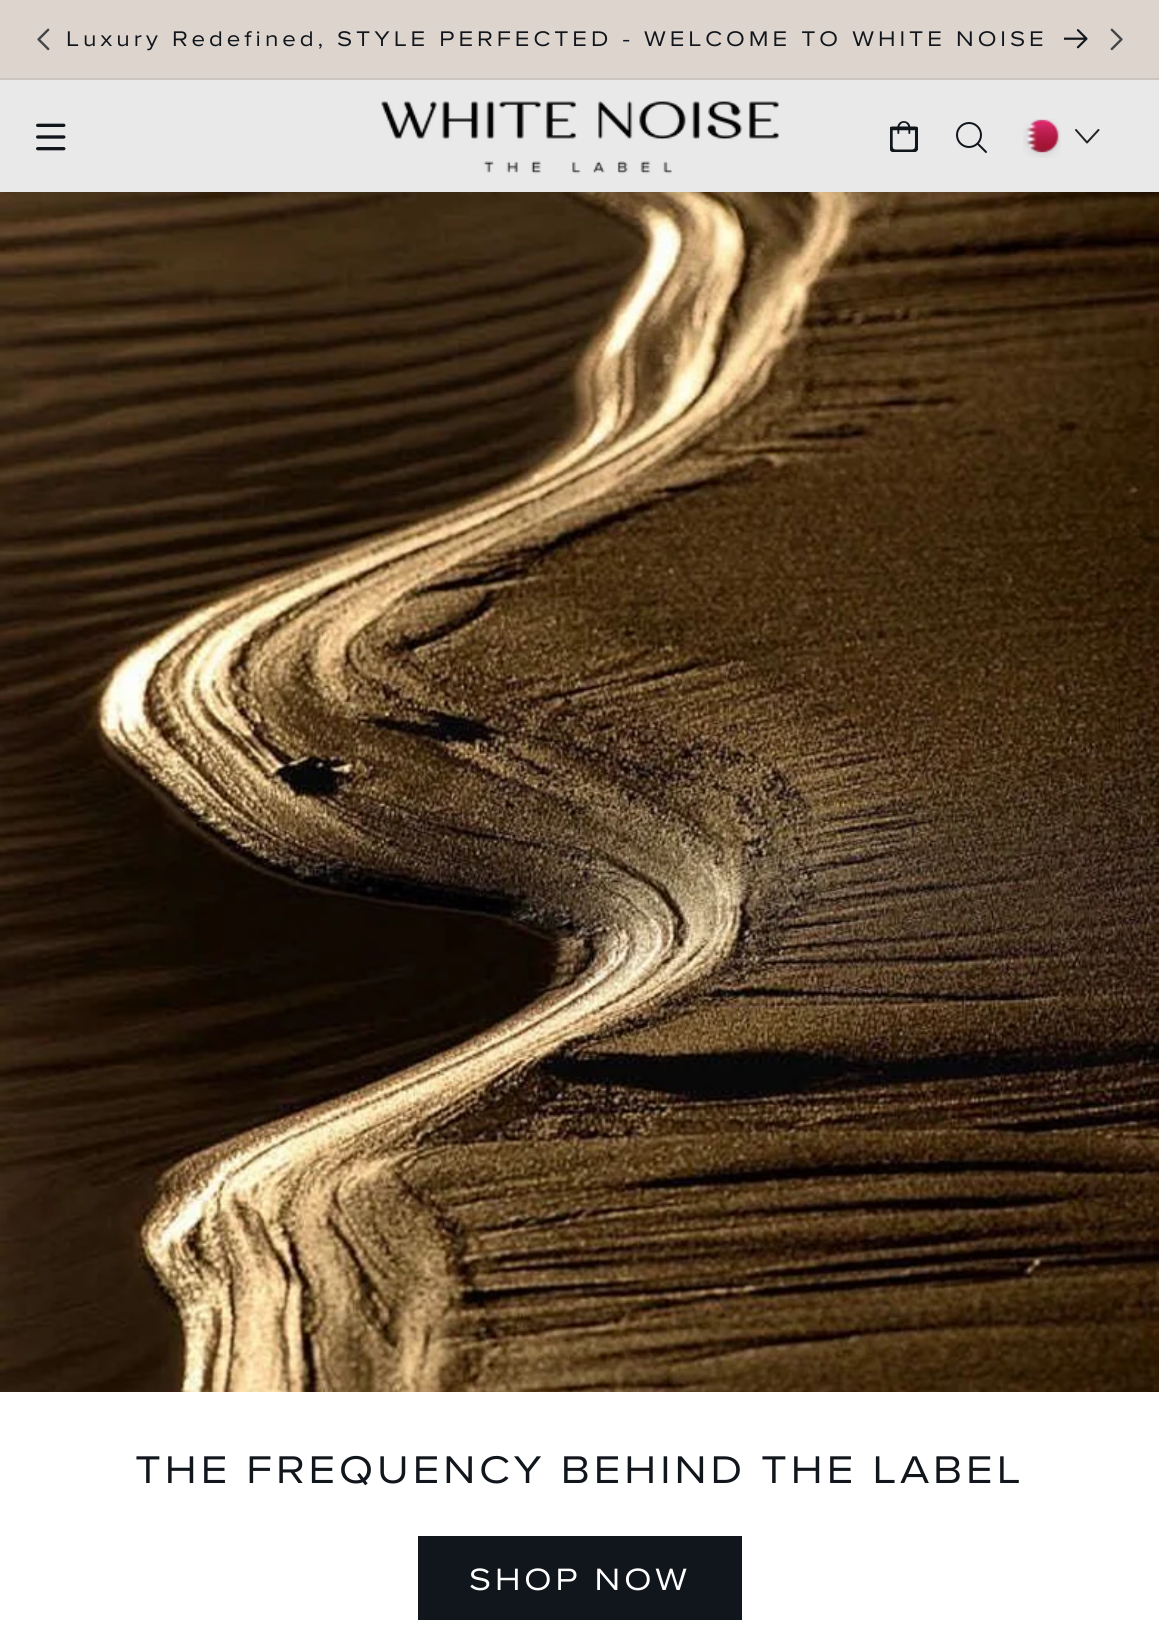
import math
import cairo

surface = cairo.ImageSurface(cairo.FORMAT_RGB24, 1159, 1633)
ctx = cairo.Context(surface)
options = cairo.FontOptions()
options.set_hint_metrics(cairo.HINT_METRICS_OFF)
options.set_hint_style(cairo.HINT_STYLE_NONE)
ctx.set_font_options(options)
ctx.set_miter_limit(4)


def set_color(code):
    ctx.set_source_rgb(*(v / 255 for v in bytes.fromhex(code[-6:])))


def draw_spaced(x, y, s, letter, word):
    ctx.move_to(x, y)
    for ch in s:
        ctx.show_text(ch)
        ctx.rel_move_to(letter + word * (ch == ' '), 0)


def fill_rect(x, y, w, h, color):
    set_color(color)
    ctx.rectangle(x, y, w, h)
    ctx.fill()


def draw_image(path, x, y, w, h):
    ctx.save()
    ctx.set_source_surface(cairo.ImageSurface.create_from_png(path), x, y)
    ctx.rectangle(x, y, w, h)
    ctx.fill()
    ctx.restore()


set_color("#ffffff")
ctx.paint()
fill_rect(0, 0, 1159, 78, "#dcd4cd")
fill_rect(0, 78, 1159, 2, "#ccc5bf")
draw_image("assets/img1.png", 37, 28, 13, 23)
ctx.select_font_face("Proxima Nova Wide")
ctx.set_font_size(22)
set_color("#11151c")
draw_spaced(66, 46, "Luxury Redefined, STYLE PERFECTED - WELCOME TO WHITE NOISE", 4, 0)
draw_image("assets/img2.png", 1064, 29, 24, 20)
draw_image("assets/img3.png", 1110, 28, 13, 23)
fill_rect(0, 80, 1159, 112, "#e9e9e9")
draw_image("assets/img4.png", 36, 123, 30, 28)
draw_image("assets/img5.png", 381, 101, 398, 73)
draw_image("assets/img6.png", 890, 121, 28, 31)
ctx.arc(969, 135, 12, 0, 2 * math.pi)
set_color("#11151c")
ctx.stroke()
ctx.new_path()
ctx.move_to(978, 144)
ctx.line_to(986, 152)
ctx.set_line_cap(cairo.LINE_CAP_ROUND)
ctx.stroke()
draw_image("assets/img7.png", 1023, 119, 38, 39)
ctx.new_path()
ctx.move_to(1076, 130)
ctx.line_to(1087, 142.5)
ctx.line_to(1098.5, 130)
set_color("#242424")
ctx.set_line_join(cairo.LINE_JOIN_ROUND)
ctx.stroke()
draw_image("assets/img8.png", 0, 192, 1159, 1200)
ctx.set_font_size(40)
set_color("#11151c")
draw_spaced(135, 1483, "THE FREQUENCY BEHIND THE LABEL", 4, 0)
ctx.rectangle(419, 1537, 322, 82)
ctx.fill_preserve()
ctx.set_line_cap(cairo.LINE_CAP_BUTT)
ctx.set_line_join(cairo.LINE_JOIN_MITER)
ctx.stroke()
ctx.set_font_size(32)
set_color("#ffffff")
draw_spaced(469, 1590, "SHOP NOW", 4, 0)
surface.write_to_png("output.png")
